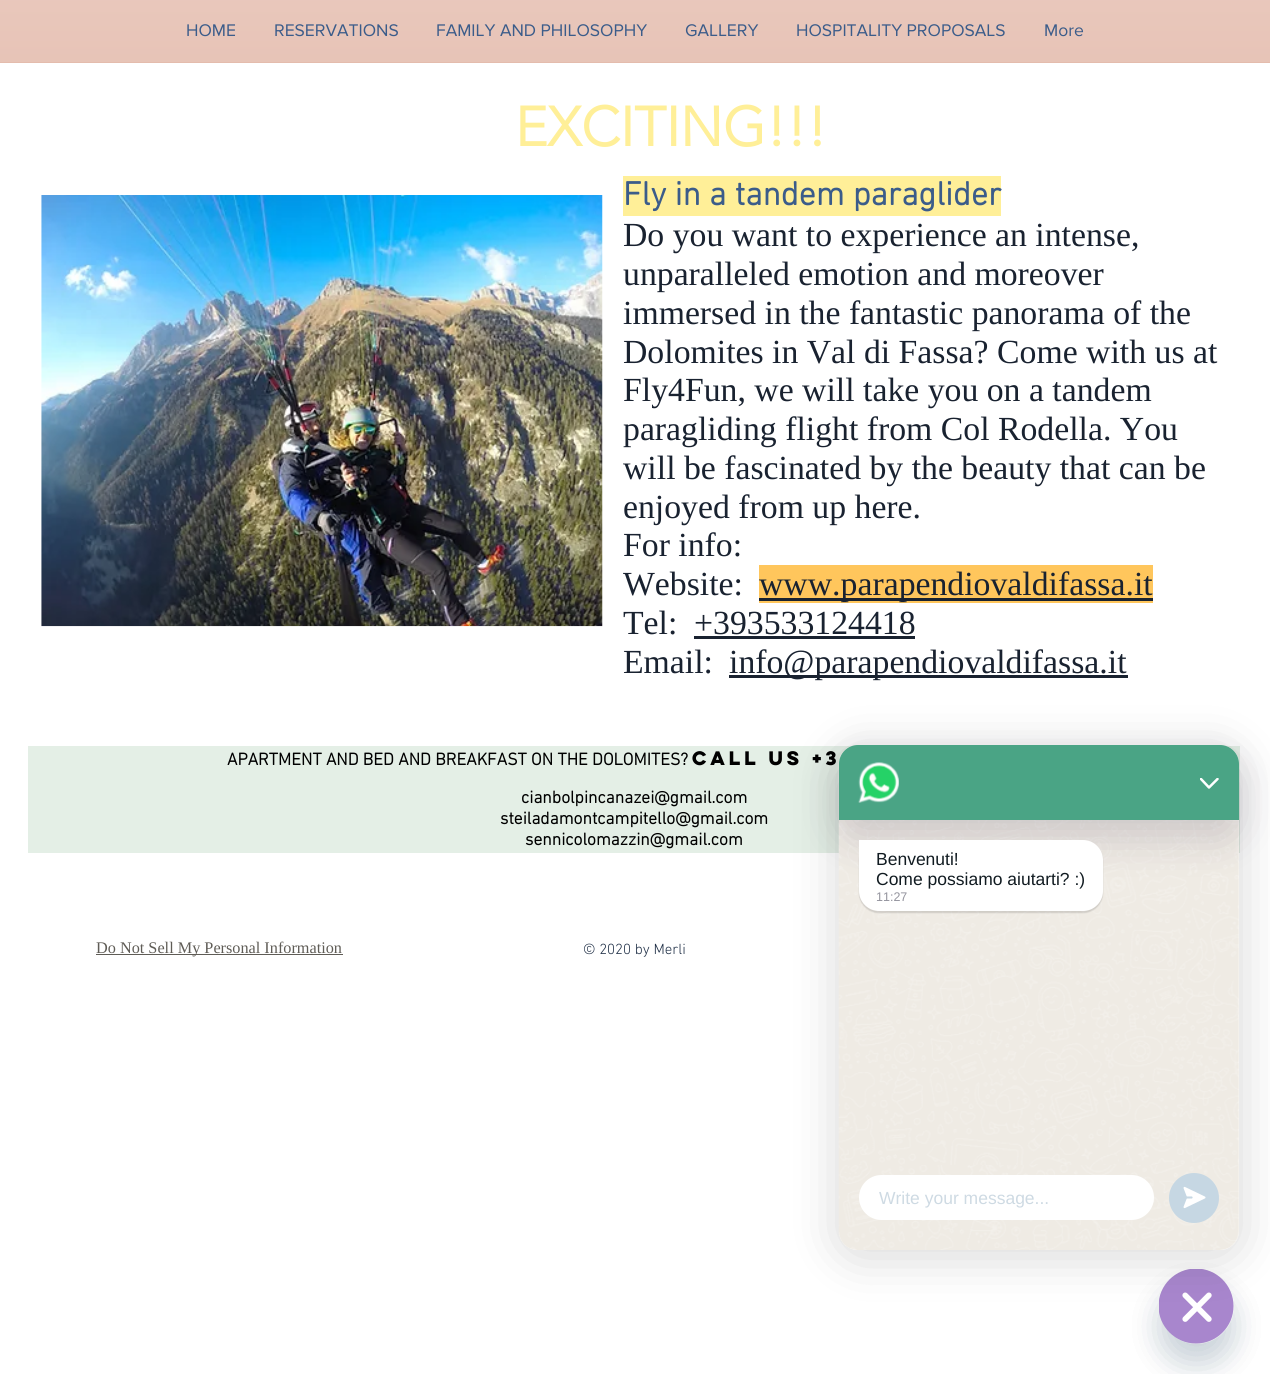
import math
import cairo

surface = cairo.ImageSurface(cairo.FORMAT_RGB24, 1270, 1374)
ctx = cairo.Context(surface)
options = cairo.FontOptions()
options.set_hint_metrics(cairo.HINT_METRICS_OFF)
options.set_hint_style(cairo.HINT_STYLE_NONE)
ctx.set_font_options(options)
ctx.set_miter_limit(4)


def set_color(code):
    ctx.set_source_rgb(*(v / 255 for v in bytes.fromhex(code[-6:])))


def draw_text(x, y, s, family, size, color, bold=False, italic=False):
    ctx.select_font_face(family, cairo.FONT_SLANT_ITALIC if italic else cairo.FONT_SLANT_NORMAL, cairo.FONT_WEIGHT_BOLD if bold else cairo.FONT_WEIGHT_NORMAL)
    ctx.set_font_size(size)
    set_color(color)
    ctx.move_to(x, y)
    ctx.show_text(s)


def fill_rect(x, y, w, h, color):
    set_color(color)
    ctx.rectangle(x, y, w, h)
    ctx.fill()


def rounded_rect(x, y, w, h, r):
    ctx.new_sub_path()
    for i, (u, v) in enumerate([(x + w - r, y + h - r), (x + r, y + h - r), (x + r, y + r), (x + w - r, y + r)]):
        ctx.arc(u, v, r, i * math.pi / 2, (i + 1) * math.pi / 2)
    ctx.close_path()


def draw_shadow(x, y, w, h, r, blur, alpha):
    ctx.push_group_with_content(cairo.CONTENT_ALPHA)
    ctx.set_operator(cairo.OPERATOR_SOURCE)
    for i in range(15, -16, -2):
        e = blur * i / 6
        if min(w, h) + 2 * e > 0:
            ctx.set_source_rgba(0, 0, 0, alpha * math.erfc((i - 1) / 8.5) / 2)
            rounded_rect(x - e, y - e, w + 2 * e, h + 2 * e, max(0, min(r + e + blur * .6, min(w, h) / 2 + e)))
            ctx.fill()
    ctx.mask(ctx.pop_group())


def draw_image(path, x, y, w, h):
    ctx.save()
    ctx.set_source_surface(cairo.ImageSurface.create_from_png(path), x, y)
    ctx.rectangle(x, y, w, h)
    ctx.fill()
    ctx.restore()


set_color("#ffffff")
ctx.paint()
fill_rect(0, 0, 1270, 63, "#e1b4a4")
draw_image("assets/img1.png", 0, 0, 1270, 63)
draw_text(186, 36, "HOME", "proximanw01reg", 17.5, "#3b5c8a")
draw_text(274, 36, "RESERVATIONS", "proximanw01reg", 17.5, "#3b5c8a")
draw_text(436, 36, "FAMILY AND PHILOSOPHY", "proximanw01reg", 17.5, "#3b5c8a")
draw_text(685, 36, "GALLERY", "proximanw01reg", 17.5, "#3b5c8a")
draw_text(796, 36, "HOSPITALITY PROPOSALS", "proximanw01reg", 17.5, "#3b5c8a")
draw_text(1044, 36, "More", "proximanw01reg", 17.5, "#3b5c8a")
draw_text(515, 146, "EXCITING!!!", "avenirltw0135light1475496", 55, "#ffef98", bold=True)
draw_image("assets/img2.png", 41, 195, 562, 432)
fill_rect(623, 176, 378, 40, "#ffef98")
draw_text(623, 205, "Fly in a tandem paraglider", "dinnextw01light", 33.75, "#3b5c8a", bold=True)
draw_text(623, 246, "Do you want to experience an intense,", "Liberation Serif", 33.75, "#192230")
draw_text(623, 285, "unparalleled emotion and moreover", "Liberation Serif", 33.75, "#192230")
draw_text(623, 324, "immersed in the fantastic panorama of the", "Liberation Serif", 33.75, "#192230")
draw_text(623, 363, "Dolomites in Val di Fassa? Come with us at", "Liberation Serif", 33.75, "#192230")
draw_text(623, 401, "Fly4Fun, we will take you on a tandem", "Liberation Serif", 33.75, "#192230")
draw_text(623, 440, "paragliding flight from Col Rodella. You", "Liberation Serif", 33.75, "#192230")
draw_text(623, 479, "will be fascinated by the beauty that can be", "Liberation Serif", 33.75, "#192230")
draw_text(623, 518, "enjoyed from up here.", "Liberation Serif", 33.75, "#192230")
draw_text(623, 556, "For info:", "Liberation Serif", 33.75, "#192230")
draw_text(623, 595, "Website:", "Liberation Serif", 33.75, "#192230")
fill_rect(759, 565, 394, 38, "#ffc65c")
fill_rect(759, 598, 394, 3, "#192230")
draw_text(759, 595, "www.parapendiovaldifassa.it", "Liberation Serif", 33.75, "#192230")
draw_text(623, 634, "Tel:", "Liberation Serif", 33.75, "#192230")
draw_text(694, 634, "+393533124418", "Liberation Serif", 33.75, "#192230")
fill_rect(694, 636, 221, 3, "#192230")
draw_text(623, 673, "Email:", "Liberation Serif", 33.75, "#192230")
fill_rect(729, 675, 399, 3, "#192230")
draw_text(729, 673, "info@parapendiovaldifassa.it", "Liberation Serif", 33.75, "#192230")
fill_rect(28, 746, 1212, 107, "#e4efe6")
draw_text(227, 765, "APARTMENT AND BED AND BREAKFAST ON THE DOLOMITES?", "dinnextw01light", 17.5, "#000000", bold=True)
draw_text(692, 765, "call us +3", "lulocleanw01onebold", 17.5, "#000000", bold=True)
draw_text(521, 803, "cianbolpincanazei@gmail.com", "dinnextw01light", 17.5, "#000000", bold=True)
draw_text(500, 824, "steiladamontcampitello@gmail.com", "dinnextw01light", 17.5, "#000000", bold=True)
draw_text(525, 845, "sennicolomazzin@gmail.com", "dinnextw01light", 17.5, "#000000", bold=True)
fill_rect(96, 954, 247, 1, "#5f5c56")
draw_text(96, 953, "Do Not Sell My Personal Information", "Liberation Serif", 16.25, "#5f5c56")
draw_text(583, 954, "© 2020 by Merli", "dinnextw01light Light", 15, "#1e2e45")
set_color("#49687e")
draw_shadow(1159, 1289, 75, 75, 37.5, 15, 0.16)
draw_image("assets/img6.png", 1159, 1269, 75, 75)
set_color("#000000")
draw_shadow(839, 751, 400, 505, 19, 25, 0.16)
ctx.save()
ctx.set_fill_rule(cairo.FILL_RULE_EVEN_ODD)
ctx.new_path()
ctx.move_to(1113, 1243)
ctx.line_to(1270, 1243)
ctx.line_to(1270, 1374)
ctx.line_to(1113, 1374)
ctx.close_path()
ctx.move_to(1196.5, 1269)
ctx.curve_to(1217, 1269, 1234, 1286, 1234, 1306.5)
ctx.curve_to(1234, 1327, 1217, 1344, 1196.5, 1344)
ctx.curve_to(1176, 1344, 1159, 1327, 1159, 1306.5)
ctx.curve_to(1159, 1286, 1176, 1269, 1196.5, 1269)
ctx.close_path()
ctx.clip()
set_color("#49687e")
draw_shadow(1159, 1289, 75, 75, 37.5, 15, 0.16)
ctx.restore()
set_color("#ffffff")
rounded_rect(839, 745, 400, 505, 19)
ctx.fill()
draw_image("assets/img4.png", 838, 745, 401, 505)
set_color("#1a0e35")
draw_shadow(839, 765, 400, 75, 19, 20, 0.16)
set_color("#4aa485")
ctx.new_path()
ctx.move_to(858, 745)
ctx.line_to(1220, 745)
ctx.curve_to(1230.5, 745, 1239, 753.5, 1239, 764)
ctx.line_to(1239, 820)
ctx.line_to(839, 820)
ctx.line_to(839, 764)
ctx.curve_to(839, 753.5, 847.5, 745, 858, 745)
ctx.close_path()
ctx.fill()
draw_image("assets/img3.png", 858, 762, 41, 41)
ctx.save()
ctx.rectangle(1200, 778, 19, 11)
ctx.clip()
ctx.new_path()
ctx.move_to(1201, 779)
ctx.line_to(1209, 787.5)
ctx.line_to(1217.5, 779)
set_color("#ffffff")
ctx.set_line_width(2.5)
ctx.set_line_cap(cairo.LINE_CAP_ROUND)
ctx.set_line_join(cairo.LINE_JOIN_ROUND)
ctx.stroke()
ctx.restore()
set_color("#000000")
draw_shadow(859, 841, 244, 72, 20, 0.5, 0.13)
set_color("#ffffff")
ctx.new_path()
ctx.move_to(859, 840)
ctx.line_to(1083, 840)
ctx.curve_to(1094, 840, 1103, 849, 1103, 860)
ctx.line_to(1103, 891)
ctx.curve_to(1103, 902, 1094, 911, 1083, 911)
ctx.line_to(879, 911)
ctx.curve_to(868, 911, 859, 902, 859, 891)
ctx.close_path()
ctx.fill()
draw_text(876, 865, "Benvenuti!", "Liberation Sans", 17.5, "#111b21")
draw_text(876, 885, "Come possiamo aiutarti? :)", "Liberation Sans", 17.5, "#111b21")
draw_text(876, 901, "11:27", "Liberation Sans", 12.5, "#93939d")
set_color("#ffffff")
rounded_rect(859, 1175, 295, 45, 22.5)
ctx.fill()
draw_text(879, 1204, "Write your message...", "Liberation Sans", 17.5, "#cedae3")
set_color("#c6d7e3")
ctx.new_path()
ctx.arc(1194, 1198, 25, 0, 2 * math.pi)
ctx.fill()
draw_image("assets/img5.png", 1183, 1186, 23, 23)
surface.write_to_png("output.png")
